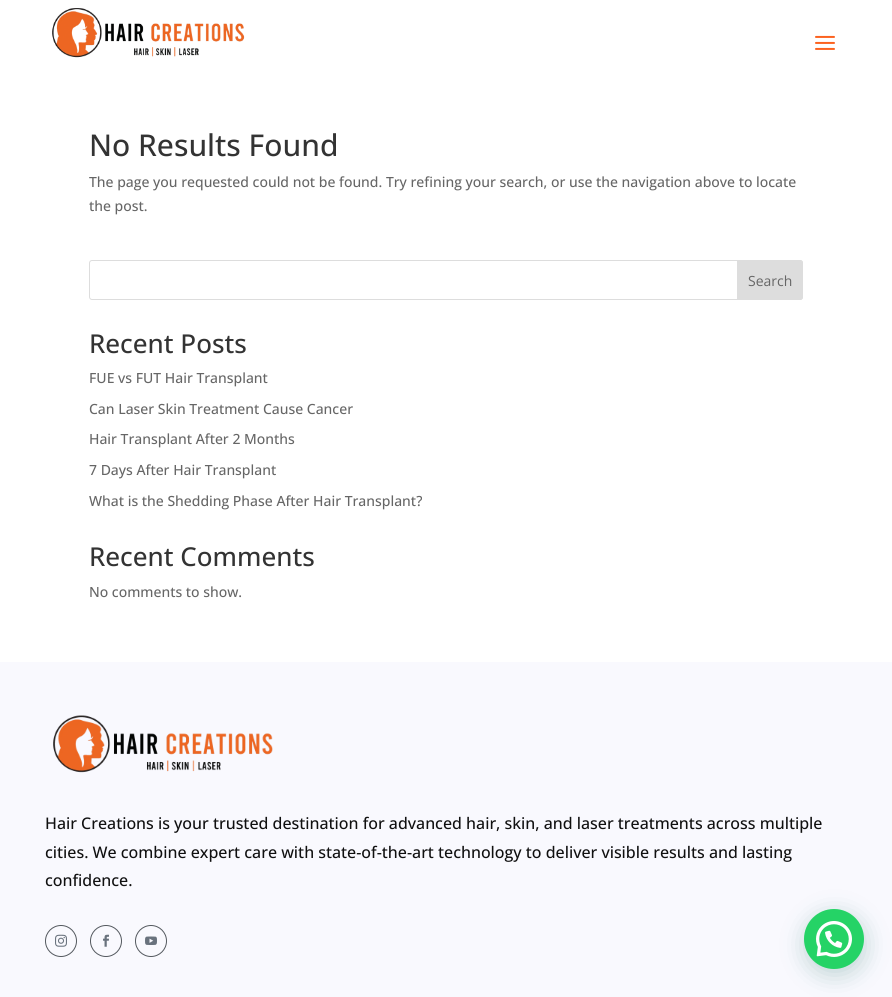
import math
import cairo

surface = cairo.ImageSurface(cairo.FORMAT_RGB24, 892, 997)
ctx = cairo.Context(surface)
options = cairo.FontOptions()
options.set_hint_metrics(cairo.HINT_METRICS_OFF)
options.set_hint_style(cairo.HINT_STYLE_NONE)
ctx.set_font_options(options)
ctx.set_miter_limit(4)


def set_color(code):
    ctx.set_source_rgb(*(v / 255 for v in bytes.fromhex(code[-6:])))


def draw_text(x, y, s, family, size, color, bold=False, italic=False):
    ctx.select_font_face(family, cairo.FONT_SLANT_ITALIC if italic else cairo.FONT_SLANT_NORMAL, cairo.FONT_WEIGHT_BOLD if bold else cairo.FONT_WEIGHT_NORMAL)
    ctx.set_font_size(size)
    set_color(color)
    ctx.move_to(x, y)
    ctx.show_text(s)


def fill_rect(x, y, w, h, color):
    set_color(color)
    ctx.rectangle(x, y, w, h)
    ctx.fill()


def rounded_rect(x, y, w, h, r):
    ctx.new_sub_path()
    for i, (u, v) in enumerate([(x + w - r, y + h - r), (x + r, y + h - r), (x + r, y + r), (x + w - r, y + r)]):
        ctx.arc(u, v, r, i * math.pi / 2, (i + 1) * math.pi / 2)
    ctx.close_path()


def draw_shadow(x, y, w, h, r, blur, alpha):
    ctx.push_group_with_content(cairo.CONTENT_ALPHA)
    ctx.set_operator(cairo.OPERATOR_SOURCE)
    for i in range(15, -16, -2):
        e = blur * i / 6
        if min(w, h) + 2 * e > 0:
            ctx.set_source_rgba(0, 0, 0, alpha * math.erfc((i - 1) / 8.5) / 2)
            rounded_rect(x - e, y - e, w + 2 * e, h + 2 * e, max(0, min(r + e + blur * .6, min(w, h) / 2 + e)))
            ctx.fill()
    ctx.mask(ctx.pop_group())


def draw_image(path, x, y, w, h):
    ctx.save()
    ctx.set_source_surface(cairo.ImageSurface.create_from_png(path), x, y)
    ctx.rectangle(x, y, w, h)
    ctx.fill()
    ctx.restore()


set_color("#ffffff")
ctx.paint()
draw_image("assets/img1.png", 52, 8, 193, 50)
draw_image("assets/img2.png", 815, 35, 20, 15)
draw_text(89, 156, "No Results Found", "Open Sans Medium", 30, "#333333")
draw_text(89, 187, "The page you requested could not be found. Try refining your search, or use the navigation above to locate", "Open Sans Medium", 14, "#666666")
draw_text(89, 211, "the post.", "Open Sans Medium", 14, "#666666")
rounded_rect(89.5, 260.5, 713, 39, 2.5)
set_color("#dddddd")
ctx.set_line_width(1)
ctx.stroke()
ctx.new_path()
ctx.move_to(737.5, 260.5)
ctx.line_to(800, 260.5)
ctx.curve_to(801.5, 260.5, 802.5, 261.5, 802.5, 263)
ctx.line_to(802.5, 297)
ctx.curve_to(802.5, 298.5, 801.5, 299.5, 800, 299.5)
ctx.line_to(737.5, 299.5)
ctx.close_path()
ctx.fill_preserve()
ctx.stroke()
draw_text(748, 286, "Search", "Open Sans", 14, "#666666")
draw_text(89, 353, "Recent Posts", "Open Sans Medium", 26, "#333333")
draw_text(89, 383, "FUE vs FUT Hair Transplant", "Open Sans Medium", 14, "#666666")
draw_text(89, 414, "Can Laser Skin Treatment Cause Cancer", "Open Sans Medium", 14, "#666666")
draw_text(89, 444, "Hair Transplant After 2 Months", "Open Sans Medium", 14, "#666666")
draw_text(89, 475, "7 Days After Hair Transplant", "Open Sans Medium", 14, "#666666")
draw_text(89, 506, "What is the Shedding Phase After Hair Transplant?", "Open Sans Medium", 14, "#666666")
draw_text(89, 566, "Recent Comments", "Open Sans Medium", 26, "#333333")
draw_text(89, 597, "No comments to show.", "Open Sans Medium", 14, "#666666")
fill_rect(0, 662, 892, 335, "#f9f9fe")
draw_image("assets/img3.png", 53, 715, 220, 58)
draw_text(45, 829, "Hair Creations is your trusted destination for advanced hair, skin, and laser treatments across multiple", "Open Sans Medium", 16, "#101010")
draw_text(45, 858, "cities. We combine expert care with state-of-the-art technology to deliver visible results and lasting", "Open Sans Medium", 16, "#101010")
draw_text(45, 886, "confidence.", "Open Sans Medium", 16, "#101010")
ctx.new_path()
ctx.arc(61, 941, 15.5, 0, 2 * math.pi)
set_color("#54595f")
ctx.stroke()
draw_image("assets/img4.png", 55, 934, 12, 13)
ctx.arc(106, 941, 15.5, 0, 2 * math.pi)
ctx.stroke()
draw_image("assets/img5.png", 103, 934, 6, 13)
ctx.arc(151, 941, 15.5, 0, 2 * math.pi)
ctx.stroke()
draw_image("assets/img6.png", 145, 936, 12, 9)
set_color("#075e54")
draw_shadow(805, 915, 60, 60, 30, 12, 0.24)
set_color("#25d366")
ctx.arc(834, 939, 30, 0, 2 * math.pi)
ctx.fill()
draw_image("assets/img7.png", 816, 921, 36, 36)
surface.write_to_png("output.png")
